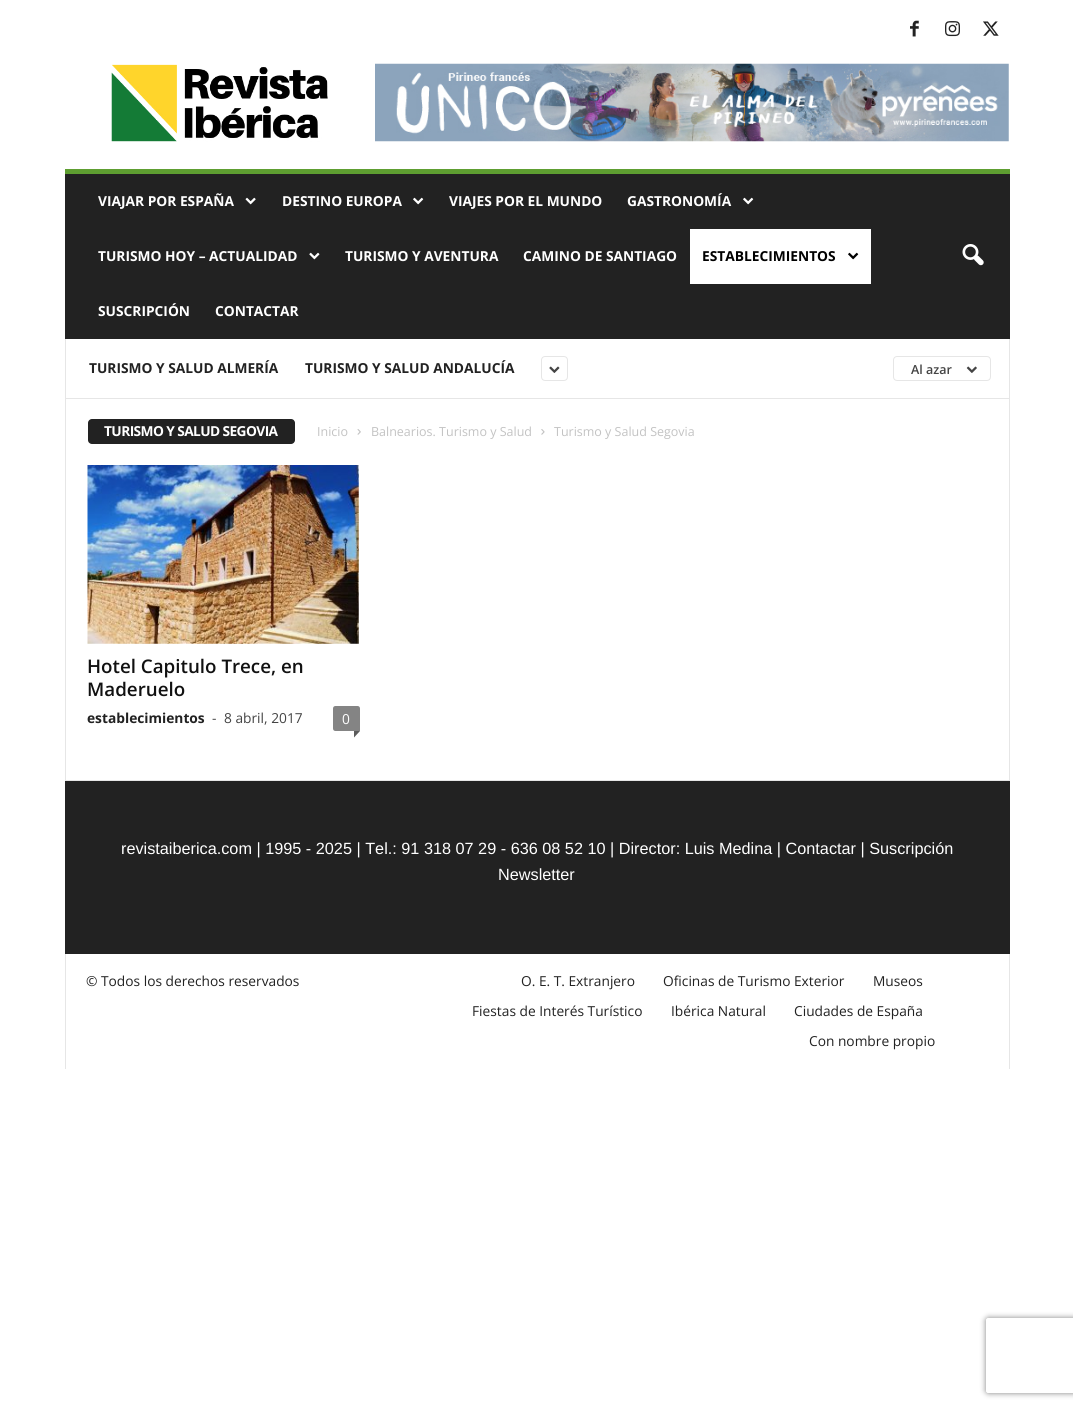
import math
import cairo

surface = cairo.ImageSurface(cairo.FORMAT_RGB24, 1073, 1409)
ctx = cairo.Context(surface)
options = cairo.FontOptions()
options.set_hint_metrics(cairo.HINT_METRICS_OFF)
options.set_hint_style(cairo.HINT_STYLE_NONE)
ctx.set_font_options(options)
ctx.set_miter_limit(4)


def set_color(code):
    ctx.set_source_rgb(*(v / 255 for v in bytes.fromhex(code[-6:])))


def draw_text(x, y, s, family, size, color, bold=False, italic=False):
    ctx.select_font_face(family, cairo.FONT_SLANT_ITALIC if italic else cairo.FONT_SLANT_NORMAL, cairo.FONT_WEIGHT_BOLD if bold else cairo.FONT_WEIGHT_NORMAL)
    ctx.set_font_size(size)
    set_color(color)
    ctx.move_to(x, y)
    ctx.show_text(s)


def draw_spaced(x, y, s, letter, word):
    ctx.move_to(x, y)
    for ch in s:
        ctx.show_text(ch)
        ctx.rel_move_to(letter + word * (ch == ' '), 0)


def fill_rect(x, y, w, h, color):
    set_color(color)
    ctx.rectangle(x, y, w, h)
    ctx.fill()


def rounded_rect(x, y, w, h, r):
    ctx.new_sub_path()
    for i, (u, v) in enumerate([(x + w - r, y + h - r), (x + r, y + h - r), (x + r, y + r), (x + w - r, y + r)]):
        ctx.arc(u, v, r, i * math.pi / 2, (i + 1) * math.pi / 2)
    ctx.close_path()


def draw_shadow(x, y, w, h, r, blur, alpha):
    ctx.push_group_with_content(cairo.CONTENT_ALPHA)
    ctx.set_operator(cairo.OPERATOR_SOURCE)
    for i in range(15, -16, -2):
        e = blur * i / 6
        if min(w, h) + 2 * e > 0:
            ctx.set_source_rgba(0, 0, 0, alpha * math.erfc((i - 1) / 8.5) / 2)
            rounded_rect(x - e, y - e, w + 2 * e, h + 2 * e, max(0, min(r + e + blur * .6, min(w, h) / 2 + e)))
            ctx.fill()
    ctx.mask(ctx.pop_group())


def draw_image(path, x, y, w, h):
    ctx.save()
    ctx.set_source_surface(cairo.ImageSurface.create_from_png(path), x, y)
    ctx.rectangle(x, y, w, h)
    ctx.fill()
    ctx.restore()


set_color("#ffffff")
ctx.paint()
draw_image("assets/img1.png", 910, 20, 9, 17)
draw_image("assets/img2.png", 945, 21, 15, 16)
draw_image("assets/img3.png", 983, 21, 16, 15)
draw_image("assets/img4.png", 111, 64, 217, 78)
draw_image("assets/img5.png", 375, 63, 634, 79)
fill_rect(65, 174, 945, 165, "#222222")
fill_rect(65, 169, 945, 5, "#5e9e31")
draw_text(98, 206, "VIAJAR POR ESPAÑA", "Open Sans", 13.75, "#ffffff", bold=True)
draw_image("assets/img6.png", 245, 197, 11, 8)
draw_text(282, 206, "DESTINO EUROPA", "Open Sans", 13.75, "#ffffff", bold=True)
draw_image("assets/img7.png", 413, 197, 11, 8)
draw_text(449, 206, "VIAJES POR EL MUNDO", "Open Sans", 13.75, "#ffffff", bold=True)
draw_text(627, 206, "GASTRONOMÍA", "Open Sans", 13.75, "#ffffff", bold=True)
draw_image("assets/img7.png", 743, 197, 11, 8)
draw_text(98, 261, "TURISMO HOY – ACTUALIDAD", "Open Sans", 13.75, "#ffffff", bold=True)
draw_image("assets/img8.png", 309, 252, 11, 8)
draw_text(345, 261, "TURISMO Y AVENTURA", "Open Sans", 13.75, "#ffffff", bold=True)
draw_text(523, 261, "CAMINO DE SANTIAGO", "Open Sans", 13.75, "#ffffff", bold=True)
fill_rect(690, 229, 181, 55, "#ffffff")
draw_text(702, 261, "ESTABLECIMIENTOS", "Open Sans", 13.75, "#000000", bold=True)
draw_image("assets/img9.png", 848, 252, 11, 8)
draw_text(98, 316, "SUSCRIPCIÓN", "Open Sans", 13.75, "#ffffff", bold=True)
draw_text(215, 316, "CONTACTAR", "Open Sans", 13.75, "#ffffff", bold=True)
draw_image("assets/img10.png", 962, 244, 22, 22)
fill_rect(1009, 339, 1, 441, "#e6e6e6")
fill_rect(66, 398, 944, 1, "#e6e6e6")
draw_text(89, 373, "TURISMO Y SALUD ALMERÍA", "Open Sans", 13.75, "#222222", bold=True)
draw_text(305, 373, "TURISMO Y SALUD ANDALUCÍA", "Open Sans", 13.75, "#222222", bold=True)
rounded_rect(541.5, 356.5, 26, 24, 3.5)
set_color("#e6e6e6")
ctx.set_line_width(1)
ctx.stroke()
draw_image("assets/img11.png", 549, 366, 11, 7)
rounded_rect(893.5, 356.5, 97, 24, 3.5)
ctx.stroke()
draw_text(911, 374, "Al azar", "Open Sans SemiBold", 12.5, "#444444")
draw_image("assets/img12.png", 966, 366, 11, 7)
fill_rect(65, 780, 945, 1, "#e6e6e6")
fill_rect(65, 339, 1, 441, "#e6e6e6")
set_color("#222222")
rounded_rect(88, 419, 207, 25, 4)
ctx.fill()
ctx.select_font_face("Open Sans", cairo.FONT_SLANT_NORMAL, cairo.FONT_WEIGHT_BOLD)
ctx.set_font_size(13.75)
set_color("#ffffff")
draw_spaced(104, 436, "TURISMO Y SALUD SEGOVIA", -0.6, 0)
draw_text(317, 436, "Inicio", "Open Sans", 12.5, "#c3c3c3")
draw_image("assets/img13.png", 357, 429, 4, 6)
draw_text(371, 436, "Balnearios. Turismo y Salud", "Open Sans", 12.5, "#c3c3c3")
draw_image("assets/img14.png", 541, 429, 4, 6)
draw_text(554, 436, "Turismo y Salud Segovia", "Open Sans", 12.5, "#c3c3c3")
draw_image("assets/img15.png", 87, 465, 272, 179)
draw_text(87, 673, "Hotel Capitulo Trece, en", "Open Sans SemiBold", 18.75, "#111111")
draw_text(87, 696, "Maderuelo", "Open Sans SemiBold", 18.75, "#111111")
draw_text(87, 723, "establecimientos", "Open Sans", 13.75, "#222222", bold=True)
draw_text(212, 723, "-", "Open Sans", 13.75, "#444444")
draw_text(224, 723, "8 abril, 2017", "Open Sans", 13.75, "#444444")
set_color("#848484")
ctx.new_path()
ctx.move_to(335.5, 706)
ctx.line_to(357.5, 706)
ctx.curve_to(359, 706, 360, 707, 360, 708.5)
ctx.line_to(360, 731)
ctx.line_to(335.5, 731)
ctx.curve_to(334, 731, 333, 730, 333, 728.5)
ctx.line_to(333, 708.5)
ctx.curve_to(333, 707, 334, 706, 335.5, 706)
ctx.close_path()
ctx.fill()
draw_text(342, 724, "0", "Open Sans", 13.75, "#ffffff")
set_color("#5b5b5b")
ctx.new_path()
ctx.move_to(354, 731)
ctx.line_to(360, 731)
ctx.line_to(354, 737.5)
ctx.close_path()
ctx.fill()
fill_rect(65, 781, 945, 173, "#222222")
draw_text(121, 854, "revistaiberica.com | 1995 - 2025 | Tel.: 91 318 07 29 - 636 08 52 10 | Director: Luis Medina | Contactar | Suscripción", "Liberation Sans", 16.25, "#ffffff")
draw_text(498, 880, "Newsletter", "Liberation Sans", 16.25, "#ffffff")
fill_rect(65, 954, 1, 115, "#e6e6e6")
draw_text(86, 986, "© Todos los derechos reservados", "Open Sans", 13.75, "#222222")
draw_text(521, 986, "O. E. T. Extranjero", "Open Sans", 13.75, "#222222")
draw_text(663, 986, "Oficinas de Turismo Exterior", "Open Sans", 13.75, "#222222")
draw_text(873, 986, "Museos", "Open Sans", 13.75, "#222222")
draw_text(472, 1016, "Fiestas de Interés Turístico", "Open Sans", 13.75, "#222222")
draw_text(671, 1016, "Ibérica Natural", "Open Sans", 13.75, "#222222")
draw_text(794, 1016, "Ciudades de España", "Open Sans", 13.75, "#222222")
draw_text(809, 1046, "Con nombre propio", "Open Sans", 13.75, "#222222")
fill_rect(1009, 954, 1, 115, "#e6e6e6")
ctx.save()
ctx.set_fill_rule(cairo.FILL_RULE_EVEN_ODD)
ctx.new_path()
ctx.move_to(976, 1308)
ctx.line_to(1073, 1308)
ctx.line_to(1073, 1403)
ctx.line_to(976, 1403)
ctx.close_path()
ctx.move_to(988.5, 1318)
ctx.line_to(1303.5, 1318)
ctx.curve_to(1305, 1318, 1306, 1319, 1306, 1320.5)
ctx.line_to(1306, 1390.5)
ctx.curve_to(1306, 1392, 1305, 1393, 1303.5, 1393)
ctx.line_to(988.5, 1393)
ctx.curve_to(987, 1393, 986, 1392, 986, 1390.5)
ctx.line_to(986, 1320.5)
ctx.curve_to(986, 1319, 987, 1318, 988.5, 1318)
ctx.close_path()
ctx.clip()
set_color("#808080")
draw_shadow(986, 1318, 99, 75, 2.5, 3, 1)
ctx.restore()
surface.write_to_png("output.png")
